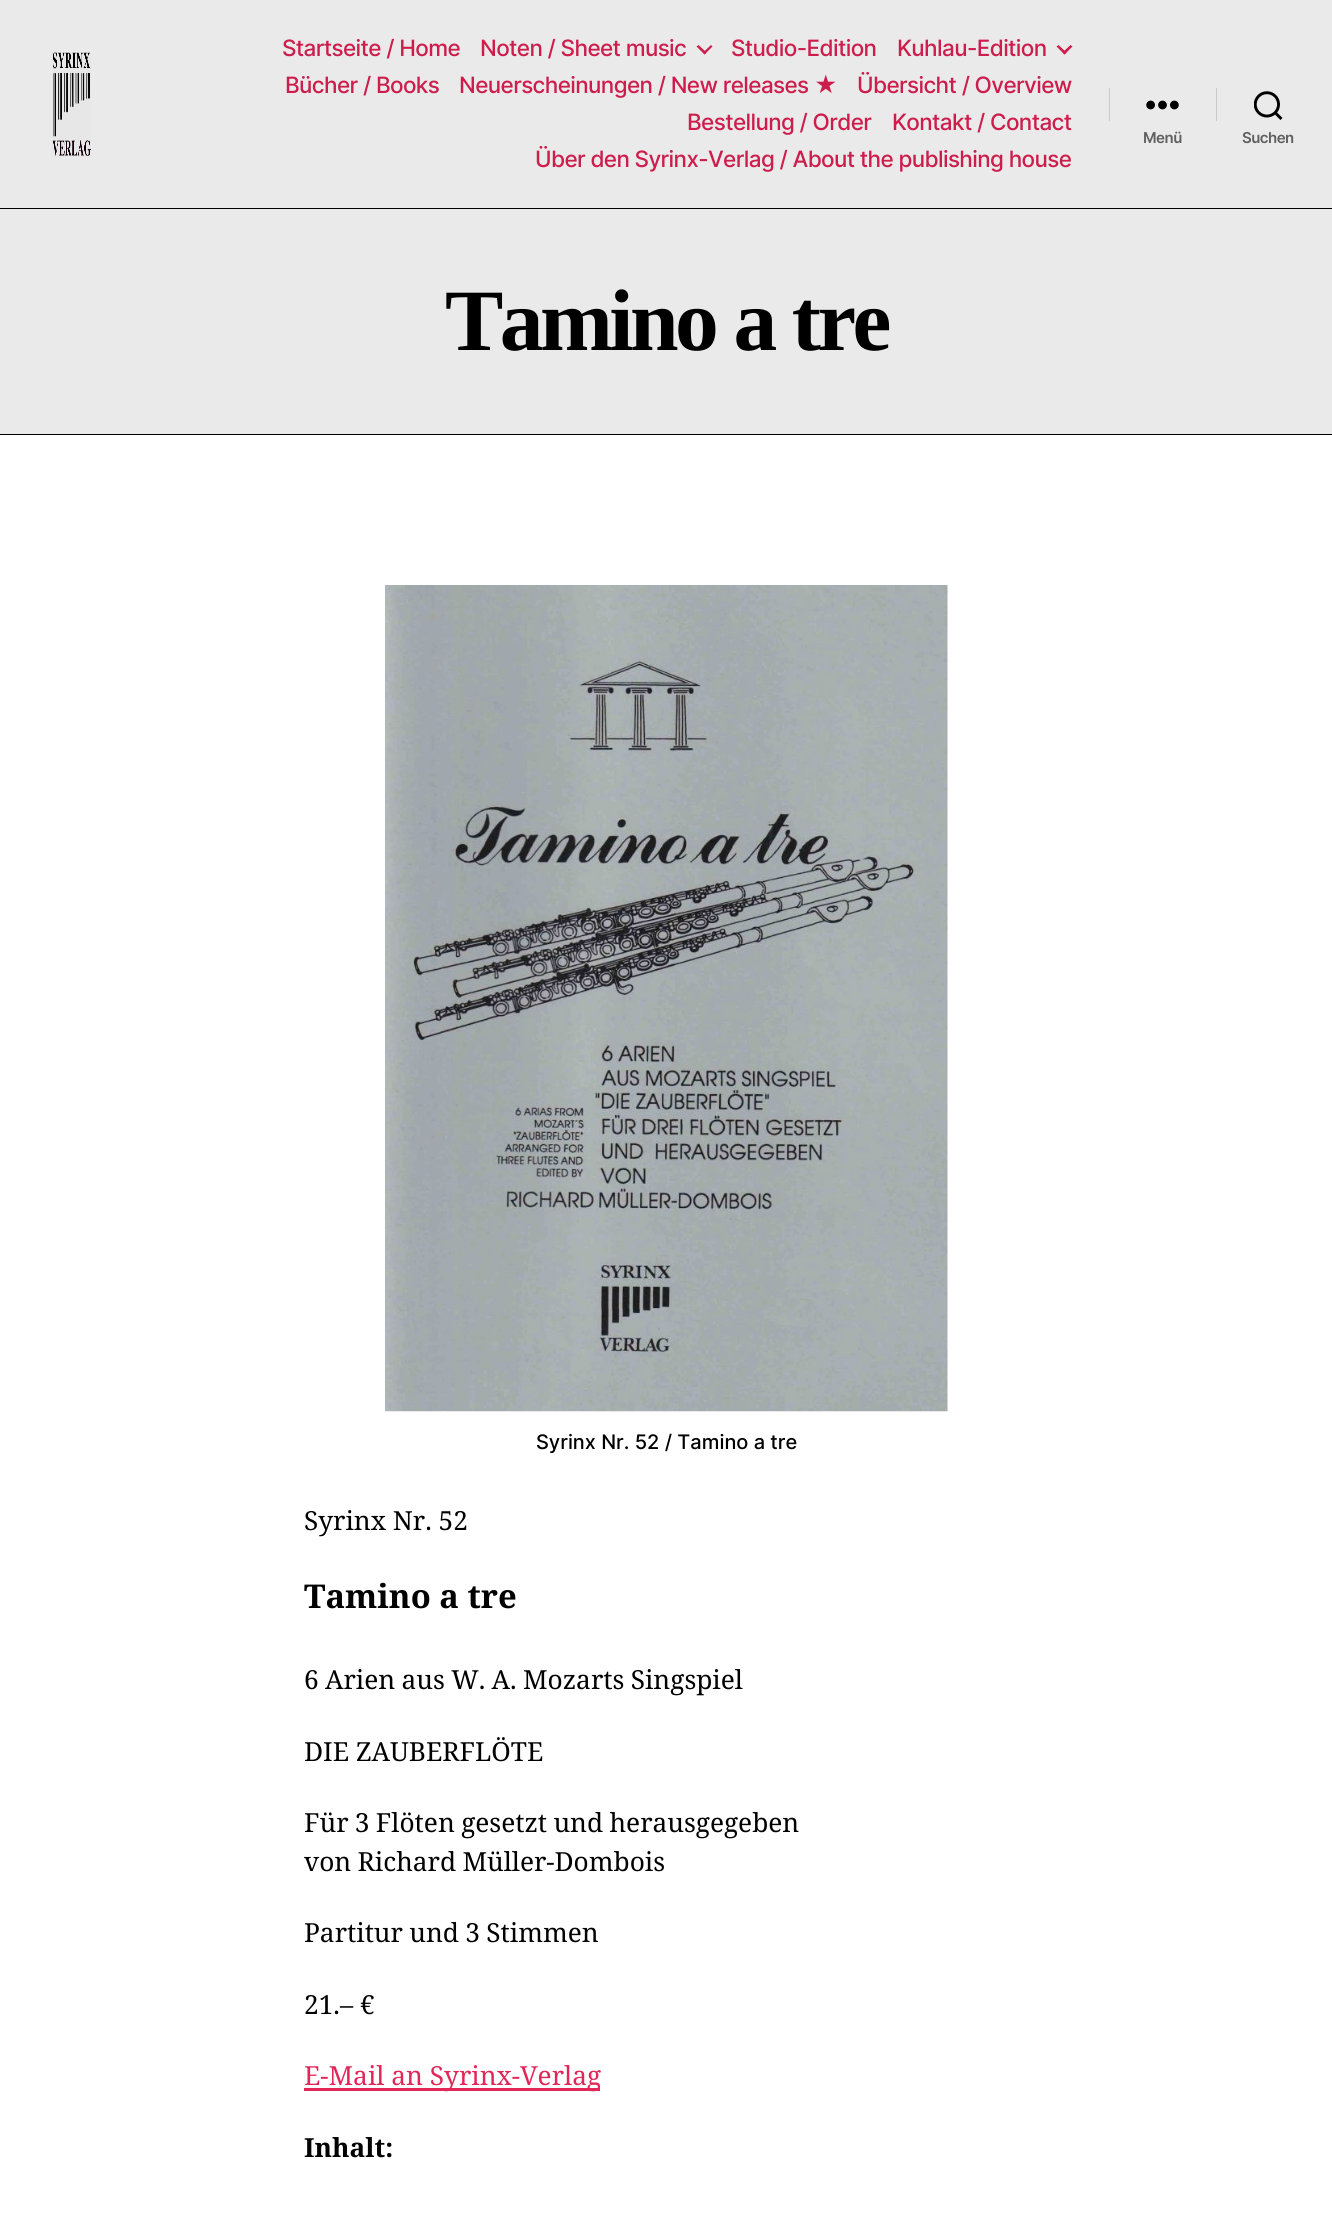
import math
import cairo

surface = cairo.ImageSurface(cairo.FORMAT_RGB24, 1332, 2217)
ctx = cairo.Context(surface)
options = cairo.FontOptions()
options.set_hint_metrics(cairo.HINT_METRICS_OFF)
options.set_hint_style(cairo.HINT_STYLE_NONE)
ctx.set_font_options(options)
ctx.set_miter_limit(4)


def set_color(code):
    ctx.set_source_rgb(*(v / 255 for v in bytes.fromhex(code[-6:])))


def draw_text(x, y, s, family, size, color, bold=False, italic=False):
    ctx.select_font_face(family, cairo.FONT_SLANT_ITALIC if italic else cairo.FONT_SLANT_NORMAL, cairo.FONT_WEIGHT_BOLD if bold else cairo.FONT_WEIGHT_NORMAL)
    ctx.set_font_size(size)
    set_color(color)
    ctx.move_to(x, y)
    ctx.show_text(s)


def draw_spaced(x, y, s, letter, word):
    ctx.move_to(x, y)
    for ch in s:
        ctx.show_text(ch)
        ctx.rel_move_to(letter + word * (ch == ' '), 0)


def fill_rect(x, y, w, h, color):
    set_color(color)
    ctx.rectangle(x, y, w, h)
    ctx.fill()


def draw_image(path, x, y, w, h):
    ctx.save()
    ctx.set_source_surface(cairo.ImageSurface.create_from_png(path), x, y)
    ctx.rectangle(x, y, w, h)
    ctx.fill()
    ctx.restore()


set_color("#ffffff")
ctx.paint()
fill_rect(0, 0, 1332, 208, "#eaeaea")
draw_image("assets/img1.png", 52, 52, 39, 105)
ctx.select_font_face("Inter Medium")
ctx.set_font_size(22.5)
set_color("#cd1d4c")
draw_spaced(282, 56, "Startseite / Home", -0.62, 0)
draw_spaced(480, 56, "Noten / Sheet music", -0.62, 0)
ctx.new_path()
ctx.move_to(696.5, 46.5)
ctx.line_to(698.5, 45)
ctx.line_to(706.5, 52.5)
ctx.line_to(704.5, 54.5)
ctx.close_path()
ctx.fill()
ctx.new_path()
ctx.move_to(703, 52.5)
ctx.line_to(711, 45)
ctx.line_to(712.5, 46.5)
ctx.line_to(704.5, 54.5)
ctx.close_path()
ctx.fill()
draw_spaced(731, 56, "Studio-Edition", -0.62, 0)
draw_spaced(897, 56, "Kuhlau-Edition", -0.62, 0)
ctx.new_path()
ctx.move_to(1056.5, 46.5)
ctx.line_to(1058.5, 45)
ctx.line_to(1066.5, 52.5)
ctx.line_to(1064.5, 54.5)
ctx.close_path()
ctx.fill()
ctx.new_path()
ctx.move_to(1062.5, 52.5)
ctx.line_to(1070.5, 45)
ctx.line_to(1072.5, 46.5)
ctx.line_to(1064.5, 54.5)
ctx.close_path()
ctx.fill()
draw_spaced(285, 93, "Bücher / Books", -0.62, 0)
draw_spaced(459, 93, "Neuerscheinungen / New releases ★", -0.62, 0)
draw_spaced(857, 93, "Übersicht / Overview", -0.62, 0)
draw_spaced(687, 130, "Bestellung / Order", -0.62, 0)
draw_spaced(892, 130, "Kontakt / Contact", -0.62, 0)
draw_spaced(535, 167, "Über den Syrinx-Verlag / About the publishing house", -0.62, 0)
fill_rect(1109, 88, 1, 33, "#c9c9c9")
draw_image("assets/img2.png", 1146, 100, 33, 10)
ctx.select_font_face("Inter SemiBold")
ctx.set_font_size(15)
set_color("#606060")
draw_spaced(1143, 143, "Menü", -0.5, 0)
fill_rect(1216, 88, 1, 33, "#c9c9c9")
draw_image("assets/img3.png", 1254, 91, 29, 29)
set_color("#606060")
draw_spaced(1242, 143, "Suchen", -0.5, 0)
fill_rect(0, 209, 1332, 225, "#eaeaea")
fill_rect(0, 208, 1332, 1, "#000000")
fill_rect(0, 434, 1332, 1, "#000000")
ctx.select_font_face("Liberation Serif", cairo.FONT_SLANT_NORMAL, cairo.FONT_WEIGHT_BOLD)
ctx.set_font_size(87.5)
draw_spaced(445, 350, "Tamino a tre", -3.6, 0)
draw_image("assets/img4.png", 385, 585, 563, 827)
draw_text(536, 1449, "Syrinx Nr. 52 / Tamino a tre", "Inter Medium", 20, "#000000")
draw_text(304, 1530, "Syrinx Nr. 52", "Noto Serif", 26.25, "#000000")
draw_text(304, 1608, "Tamino a tre", "Noto Serif", 32.75, "#000000", bold=True)
ctx.select_font_face("Noto Serif")
ctx.set_font_size(26.25)
draw_spaced(304, 1689, "6 Arien aus W. A. Mozarts Singspiel", 0, -0.5)
draw_text(304, 1761, "DIE ZAUBERFLÖTE", "Noto Serif", 26.25, "#000000")
draw_spaced(304, 1832, "Für 3 Flöten gesetzt und herausgegeben", 0, -0.5)
draw_spaced(304, 1871, "von Richard Müller-Dombois", 0, -0.5)
draw_spaced(304, 1942, "Partitur und 3 Stimmen", 0, -0.5)
draw_text(304, 2014, "21.– €", "Noto Serif", 26.25, "#000000")
fill_rect(304, 2088, 296, 3, "#e22658")
draw_text(304, 2085, "E-Mail an Syrinx-Verlag", "Noto Serif", 26.25, "#e22658")
draw_text(304, 2157, "Inhalt:", "Noto Serif", 26.25, "#000000", bold=True)
surface.write_to_png("output.png")
